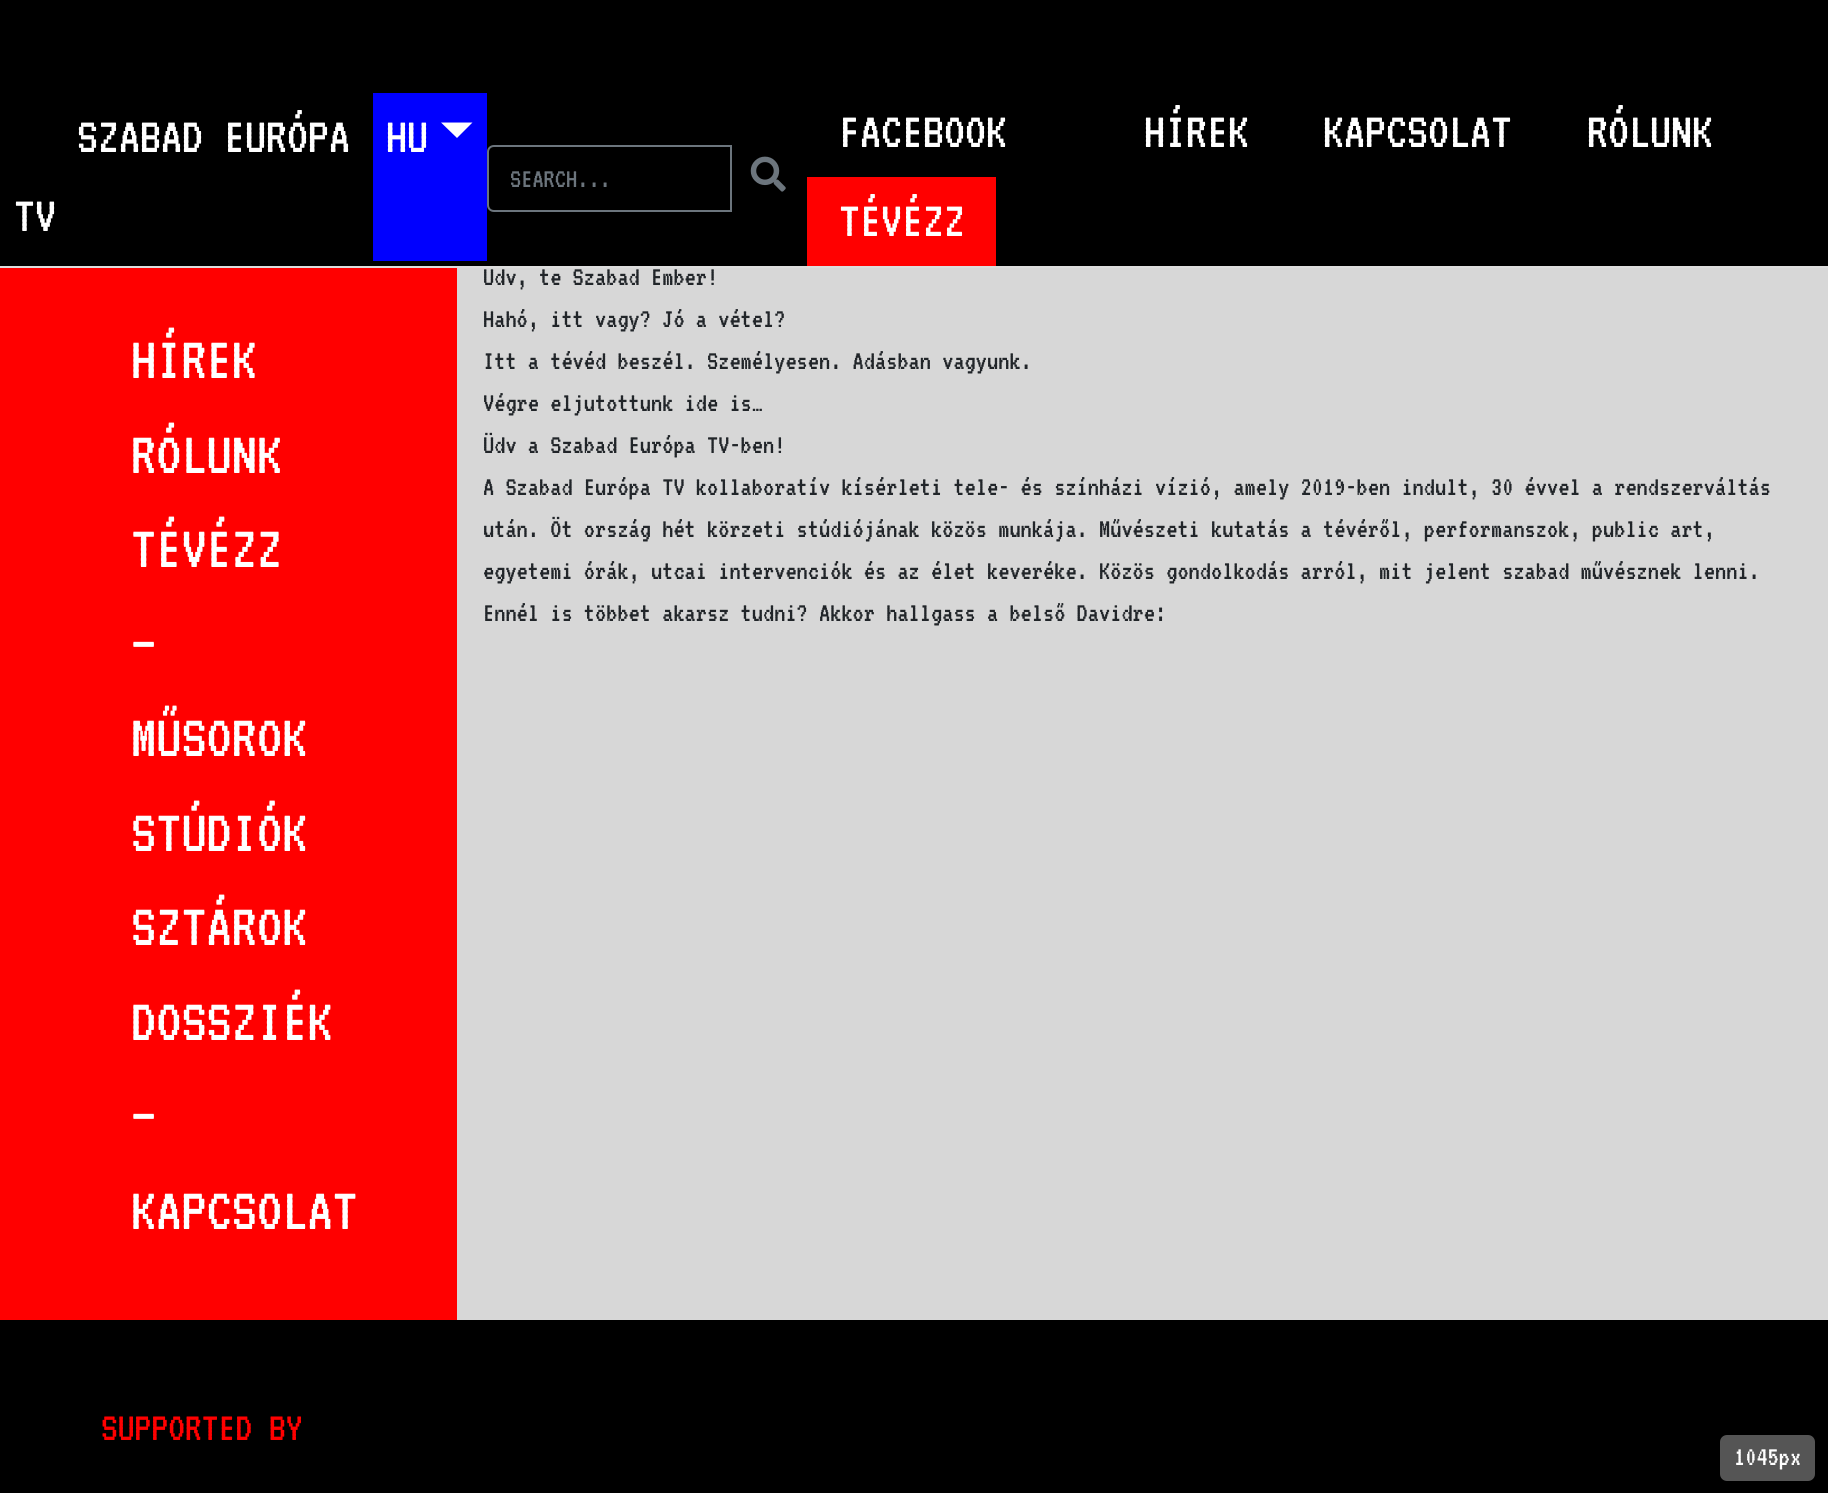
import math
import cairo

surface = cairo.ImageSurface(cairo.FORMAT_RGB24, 1828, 1493)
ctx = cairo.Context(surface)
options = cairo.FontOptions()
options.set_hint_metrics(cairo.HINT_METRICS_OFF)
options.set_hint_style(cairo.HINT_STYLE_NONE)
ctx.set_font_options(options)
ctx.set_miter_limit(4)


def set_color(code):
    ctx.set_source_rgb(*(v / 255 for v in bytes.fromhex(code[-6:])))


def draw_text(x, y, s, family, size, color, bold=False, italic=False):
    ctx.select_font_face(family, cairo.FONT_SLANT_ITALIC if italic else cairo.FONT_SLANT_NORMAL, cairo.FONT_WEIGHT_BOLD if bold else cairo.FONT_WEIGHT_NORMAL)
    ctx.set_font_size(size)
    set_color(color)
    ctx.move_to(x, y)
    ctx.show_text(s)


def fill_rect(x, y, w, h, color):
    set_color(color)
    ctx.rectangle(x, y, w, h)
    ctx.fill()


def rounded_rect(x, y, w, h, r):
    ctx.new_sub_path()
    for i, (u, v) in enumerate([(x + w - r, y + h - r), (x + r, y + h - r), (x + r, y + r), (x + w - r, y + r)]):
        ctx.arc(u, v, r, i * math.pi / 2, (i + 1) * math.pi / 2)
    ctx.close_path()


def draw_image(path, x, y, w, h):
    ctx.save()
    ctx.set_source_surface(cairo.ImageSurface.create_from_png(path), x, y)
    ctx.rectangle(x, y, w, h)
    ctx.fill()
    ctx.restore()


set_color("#000000")
ctx.paint()
fill_rect(457, 268, 1371, 1052, "#d7d7d7")
draw_text(483, 285, "Üdv, te Szabad Ember!", "VT323", 28, "#212529")
fill_rect(485, 264, 8, 2, "#000000")
fill_rect(0, 266, 1828, 2, "#dddddd")
draw_text(77, 152, "SZABAD EURÓPA", "VT323", 52.5, "#ffffff")
draw_text(14, 231, "TV", "VT323", 52.5, "#ffffff")
fill_rect(373, 93, 114, 168, "#0000ff")
draw_text(386, 152, "HU", "VT323", 52.5, "#ffffff")
ctx.new_path()
ctx.move_to(441, 122.5)
ctx.line_to(472.5, 122.5)
ctx.line_to(457, 138)
ctx.close_path()
ctx.fill()
ctx.new_path()
ctx.move_to(494, 146)
ctx.line_to(731, 146)
ctx.line_to(731, 211)
ctx.line_to(494, 211)
ctx.curve_to(490.5, 211, 488, 208.5, 488, 205)
ctx.line_to(488, 152)
ctx.curve_to(488, 148.5, 490.5, 146, 494, 146)
ctx.close_path()
set_color("#6c757d")
ctx.stroke()
draw_text(510, 187, "SEARCH...", "VT323", 28, "#6c757d")
draw_image("assets/img1.png", 750, 156, 36, 36)
draw_text(839, 147, "FACEBOOK", "VT323", 52.5, "#ffffff")
draw_text(1144, 147, "HÍREK", "VT323", 52.5, "#ffffff")
draw_text(1323, 147, "KAPCSOLAT", "VT323", 52.5, "#ffffff")
draw_text(1587, 147, "RÓLUNK", "VT323", 52.5, "#ffffff")
fill_rect(807, 177, 189, 89, "#ff0000")
draw_text(839, 236, "TÉVÉZZ", "VT323", 52.5, "#ffffff")
fill_rect(0, 268, 457, 1052, "#ff0000")
draw_text(131, 378, "HÍREK", "VT323", 63, "#ffffff")
draw_text(131, 473, "RÓLUNK", "VT323", 63, "#ffffff")
draw_text(131, 567, "TÉVÉZZ", "VT323", 63, "#ffffff")
draw_text(131, 662, "–", "VT323", 63, "#ffffff")
draw_text(131, 756, "MŰSOROK", "VT323", 63, "#ffffff")
draw_text(131, 851, "STÚDIÓK", "VT323", 63, "#ffffff")
draw_text(131, 945, "SZTÁROK", "VT323", 63, "#ffffff")
draw_text(131, 1040, "DOSSZIÉK", "VT323", 63, "#ffffff")
draw_text(131, 1134, "–", "VT323", 63, "#ffffff")
draw_text(131, 1229, "KAPCSOLAT", "VT323", 63, "#ffffff")
draw_text(483, 327, "Hahó, itt vagy? Jó a vétel?", "VT323", 28, "#212529")
draw_text(483, 369, "Itt a tévéd beszél. Személyesen. Adásban vagyunk.", "VT323", 28, "#212529")
draw_text(483, 411, "Végre eljutottunk ide is…", "VT323", 28, "#212529")
draw_text(483, 453, "Üdv a Szabad Európa TV-ben!", "VT323", 28, "#212529")
draw_text(483, 495, "A Szabad Európa TV kollaboratív kísérleti tele- és színházi vízió, amely 2019-ben indult, 30 évvel a rendszerváltás", "VT323", 28, "#212529")
draw_text(483, 537, "után. Öt ország hét körzeti stúdiójának közös munkája. Művészeti kutatás a tévéről, performanszok, public art,", "VT323", 28, "#212529")
draw_text(483, 579, "egyetemi órák, utcai intervenciók és az élet keveréke. Közös gondolkodás arról, mit jelent szabad művésznek lenni.", "VT323", 28, "#212529")
draw_text(483, 621, "Ennél is többet akarsz tudni? Akkor hallgass a belső Davidre:", "VT323", 28, "#212529")
draw_text(101, 1440, "SUPPORTED BY", "VT323", 42, "#ff0000")
set_color("#555555")
rounded_rect(1720, 1435, 95, 46, 7)
ctx.fill()
draw_text(1734, 1465, "1045px", "VT323", 28, "#ffffff")
surface.write_to_png("output.png")
